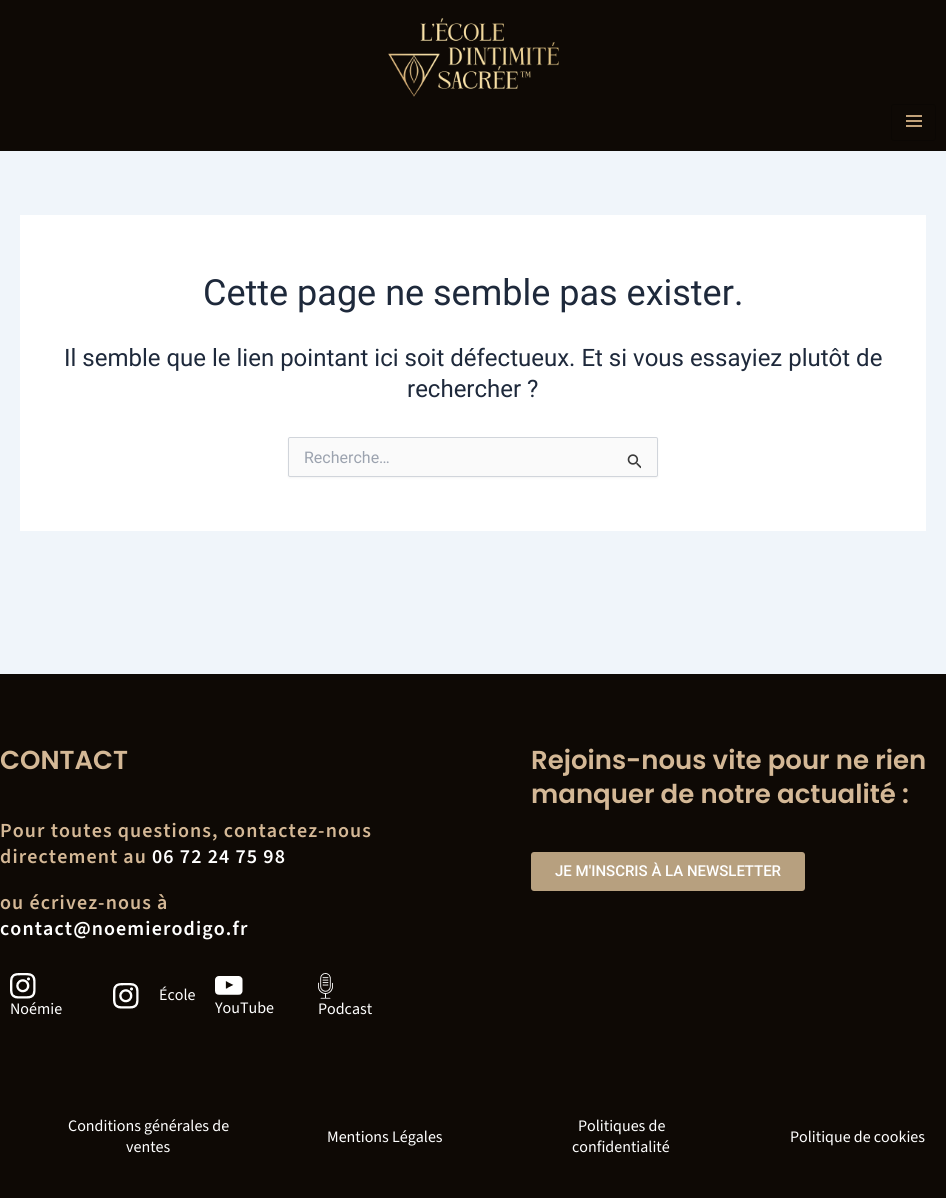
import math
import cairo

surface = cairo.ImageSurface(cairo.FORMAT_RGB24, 946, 1198)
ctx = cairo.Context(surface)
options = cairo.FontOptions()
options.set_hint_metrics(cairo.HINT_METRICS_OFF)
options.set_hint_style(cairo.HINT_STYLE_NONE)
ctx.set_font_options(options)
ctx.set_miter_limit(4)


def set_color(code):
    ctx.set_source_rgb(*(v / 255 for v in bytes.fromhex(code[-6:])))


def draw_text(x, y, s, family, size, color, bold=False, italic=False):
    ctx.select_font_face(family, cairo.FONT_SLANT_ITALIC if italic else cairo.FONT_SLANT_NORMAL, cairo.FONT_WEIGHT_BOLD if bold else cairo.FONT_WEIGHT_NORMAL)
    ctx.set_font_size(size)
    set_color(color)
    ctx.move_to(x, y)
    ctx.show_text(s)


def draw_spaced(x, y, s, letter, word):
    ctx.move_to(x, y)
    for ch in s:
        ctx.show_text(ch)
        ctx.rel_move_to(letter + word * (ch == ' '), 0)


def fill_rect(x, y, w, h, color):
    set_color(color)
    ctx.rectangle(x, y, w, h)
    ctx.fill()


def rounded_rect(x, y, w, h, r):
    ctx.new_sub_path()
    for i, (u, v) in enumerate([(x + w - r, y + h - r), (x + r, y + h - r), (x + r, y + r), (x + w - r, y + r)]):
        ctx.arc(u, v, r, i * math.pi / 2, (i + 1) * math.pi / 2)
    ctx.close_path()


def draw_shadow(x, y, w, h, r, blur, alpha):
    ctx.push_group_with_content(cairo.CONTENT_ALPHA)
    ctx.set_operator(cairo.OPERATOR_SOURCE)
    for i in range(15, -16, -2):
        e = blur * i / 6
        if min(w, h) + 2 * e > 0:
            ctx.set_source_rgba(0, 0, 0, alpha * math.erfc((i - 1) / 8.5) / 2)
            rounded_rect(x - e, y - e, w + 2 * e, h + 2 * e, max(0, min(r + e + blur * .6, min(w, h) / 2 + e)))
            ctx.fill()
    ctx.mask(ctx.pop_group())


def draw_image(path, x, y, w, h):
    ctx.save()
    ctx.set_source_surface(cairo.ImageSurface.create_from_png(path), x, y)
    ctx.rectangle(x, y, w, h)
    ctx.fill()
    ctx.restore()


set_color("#f0f5fa")
ctx.paint()
fill_rect(0, 0, 946, 151, "#0e0905")
draw_image("assets/img1.png", 388, 18, 171, 79)
rounded_rect(891.5, 104.5, 44, 36, 2.5)
set_color("#0b0704")
ctx.set_line_width(1)
ctx.stroke()
fill_rect(906, 115, 16, 2, "#c2a279")
fill_rect(906, 120, 16, 2, "#c2a279")
fill_rect(906, 125, 16, 2, "#c2a279")
fill_rect(20, 215, 906, 316, "#ffffff")
draw_text(203, 305, "Cette page ne semble pas exister.", "Roboto", 36, "#1e293b")
draw_text(64, 366, "Il semble que le lien pointant ici soit défectueux. Et si vous essayiez plutôt de", "Roboto", 24, "#1e293b")
draw_text(407, 397, "rechercher ?", "Roboto", 24, "#1e293b")
set_color("#000000")
draw_shadow(288, 438, 370, 40, 2, 1, 0.05)
set_color("#fafafa")
rounded_rect(288.5, 437.5, 369, 39, 1.5)
ctx.fill_preserve()
set_color("#d1d5db")
ctx.stroke()
draw_text(304, 463, "Recherche…", "Roboto", 16, "#9ca3af")
draw_image("assets/img2.png", 627, 454, 14, 15)
fill_rect(0, 674, 946, 524, "#0e0905")
draw_text(0, 769, "CONTACT", "Poppins SemiBold", 26, "#d4b896")
ctx.select_font_face("Source Sans 3 SemiBold")
ctx.set_font_size(20)
draw_spaced(0, 837, "Pour toutes questions, contactez-nous", 1.1, 0)
draw_spaced(0, 863, "directement au", 1.1, 0)
set_color("#ffffff")
draw_spaced(152, 863, "06 72 24 75 98", 1.1, 0)
set_color("#d4b896")
draw_spaced(0, 909, "ou écrivez-nous à", 1.1, 0)
set_color("#ffffff")
draw_spaced(0, 935, "contact@noemierodigo.fr", 1.1, 0)
draw_image("assets/img3.png", 113, 983, 26, 26)
draw_text(159, 1000, "École", "Source Sans 3", 16, "#ffffff")
draw_image("assets/img3.png", 10, 973, 26, 26)
draw_text(10, 1014, "Noémie", "Source Sans 3", 16, "#ffffff")
draw_image("assets/img4.png", 215, 976, 28, 19)
draw_text(215, 1013, "YouTube", "Source Sans 3", 16, "#ffffff")
draw_image("assets/img5.png", 318, 973, 15, 26)
draw_text(318, 1014, "Podcast", "Source Sans 3", 16, "#ffffff")
draw_text(531, 769, "Rejoins-nous vite pour ne rien", "Poppins SemiBold", 26, "#d4b896")
draw_text(531, 803, "manquer de notre actualité :", "Poppins SemiBold", 26, "#d4b896")
set_color("#b7a07f")
rounded_rect(531, 852, 274, 39, 3)
ctx.fill()
draw_text(555, 876, "JE M'INSCRIS À LA NEWSLETTER", "Roboto Medium", 15, "#ffffff")
draw_text(68, 1131, "Conditions générales de", "Source Sans 3", 16, "#ffffff")
draw_text(126, 1152, "ventes", "Source Sans 3", 16, "#ffffff")
draw_text(327, 1142, "Mentions Légales", "Source Sans 3", 16, "#ffffff")
draw_text(578, 1131, "Politiques de", "Source Sans 3", 16, "#ffffff")
draw_text(572, 1152, "confidentialité", "Source Sans 3", 16, "#ffffff")
draw_text(790, 1142, "Politique de cookies", "Source Sans 3", 16, "#ffffff")
surface.write_to_png("output.png")
